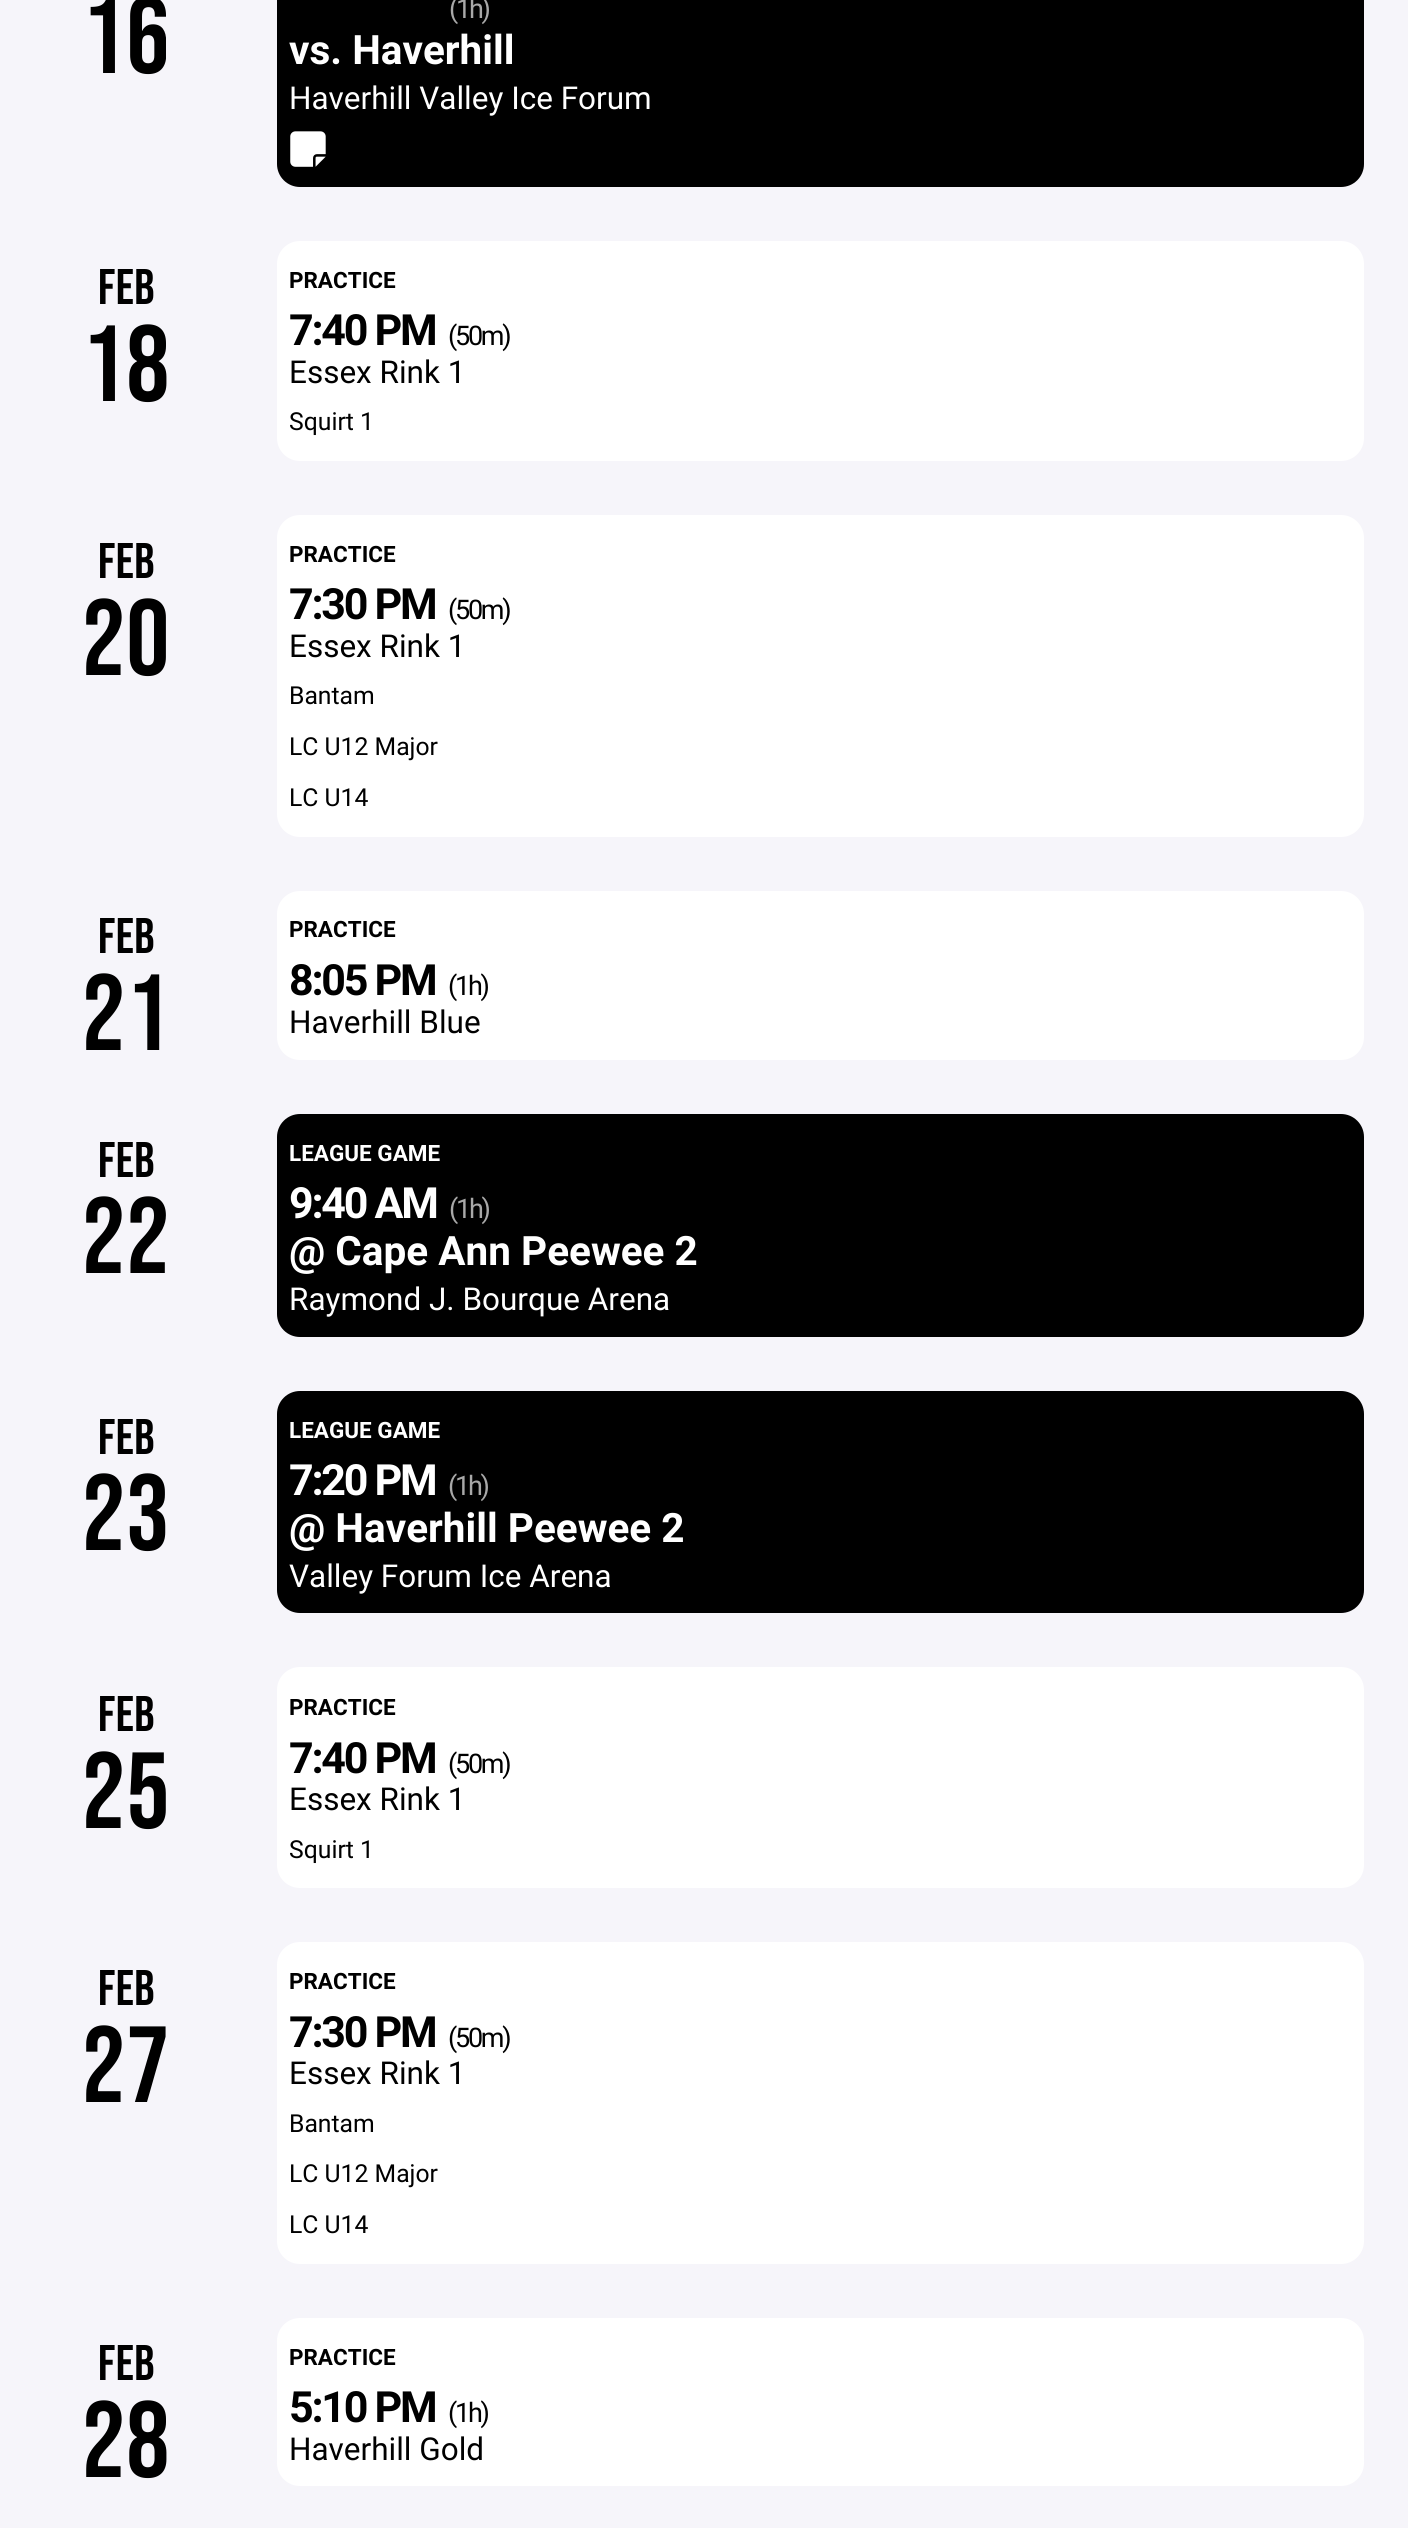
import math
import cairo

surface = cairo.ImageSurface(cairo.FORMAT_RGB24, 1408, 2528)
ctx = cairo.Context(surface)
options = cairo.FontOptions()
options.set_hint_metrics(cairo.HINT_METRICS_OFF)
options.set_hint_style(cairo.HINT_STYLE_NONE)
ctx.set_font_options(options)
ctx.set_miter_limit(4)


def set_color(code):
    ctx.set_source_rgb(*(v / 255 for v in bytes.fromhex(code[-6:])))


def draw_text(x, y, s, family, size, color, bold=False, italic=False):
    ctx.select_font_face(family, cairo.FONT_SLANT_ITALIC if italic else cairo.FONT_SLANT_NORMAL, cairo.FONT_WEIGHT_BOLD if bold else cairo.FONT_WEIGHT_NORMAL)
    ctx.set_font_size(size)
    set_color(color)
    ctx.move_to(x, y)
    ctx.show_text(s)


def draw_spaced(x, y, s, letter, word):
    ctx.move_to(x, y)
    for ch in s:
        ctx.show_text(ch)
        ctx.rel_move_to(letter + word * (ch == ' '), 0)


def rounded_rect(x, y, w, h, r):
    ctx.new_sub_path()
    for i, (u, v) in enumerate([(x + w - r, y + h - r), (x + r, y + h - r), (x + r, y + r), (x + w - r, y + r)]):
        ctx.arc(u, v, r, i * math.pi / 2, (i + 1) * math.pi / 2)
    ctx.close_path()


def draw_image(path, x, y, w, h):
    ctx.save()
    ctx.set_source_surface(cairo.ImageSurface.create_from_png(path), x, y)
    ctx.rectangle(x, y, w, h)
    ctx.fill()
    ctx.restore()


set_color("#f6f5fa")
ctx.paint()
ctx.select_font_face("Bebas Neue")
ctx.set_font_size(108)
set_color("#000000")
draw_spaced(82, 73, "16", 1, 0)
rounded_rect(277, -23, 1087, 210, 23)
ctx.fill()
ctx.select_font_face("Roboto")
ctx.set_font_size(27)
set_color("#a8a8a8")
draw_spaced(449, 18, "(1h)", -2.25, 0)
draw_text(289, 64, "vs. Haverhill", "Roboto", 40.5, "#ffffff", bold=True)
draw_text(289, 109, "Haverhill Valley Ice Forum", "Roboto", 31.5, "#ffffff")
draw_image("assets/img1.png", 290, 131, 36, 36)
ctx.select_font_face("Bebas Neue")
ctx.set_font_size(50)
set_color("#000000")
draw_spaced(98, 304, "FEB", 0.5, 0)
ctx.set_font_size(108)
draw_spaced(82, 401, "18", 1, 0)
set_color("#ffffff")
rounded_rect(277, 241, 1087, 220, 23)
ctx.fill()
draw_text(289, 288, "PRACTICE", "Roboto", 22.5, "#000000", bold=True)
ctx.set_font_size(43)
draw_spaced(289, 345, "7:40 PM", -2.25, 0)
ctx.select_font_face("Roboto")
ctx.set_font_size(27)
draw_spaced(448, 345, "(50m)", -2.25, 0)
draw_text(289, 383, "Essex Rink 1", "Roboto", 31.5, "#000000")
draw_text(289, 430, "Squirt 1", "Roboto", 24.75, "#000000")
ctx.select_font_face("Bebas Neue")
ctx.set_font_size(50)
draw_spaced(98, 578, "FEB", 0.5, 0)
ctx.set_font_size(108)
draw_spaced(82, 675, "20", 1, 0)
set_color("#ffffff")
rounded_rect(277, 515, 1087, 322, 23)
ctx.fill()
draw_text(289, 562, "PRACTICE", "Roboto", 22.5, "#000000", bold=True)
ctx.set_font_size(43)
draw_spaced(289, 619, "7:30 PM", -2.25, 0)
ctx.select_font_face("Roboto")
ctx.set_font_size(27)
draw_spaced(448, 619, "(50m)", -2.25, 0)
draw_text(289, 657, "Essex Rink 1", "Roboto", 31.5, "#000000")
draw_text(289, 704, "Bantam", "Roboto", 24.75, "#000000")
draw_text(289, 755, "LC U12 Major", "Roboto", 24.75, "#000000")
draw_text(289, 806, "LC U14", "Roboto", 24.75, "#000000")
ctx.select_font_face("Bebas Neue")
ctx.set_font_size(50)
draw_spaced(98, 953, "FEB", 0.5, 0)
ctx.set_font_size(108)
draw_spaced(82, 1050, "21", 1, 0)
set_color("#ffffff")
rounded_rect(277, 891, 1087, 169, 23)
ctx.fill()
draw_text(289, 937, "PRACTICE", "Roboto", 22.5, "#000000", bold=True)
ctx.set_font_size(43)
draw_spaced(289, 995, "8:05 PM", -2.25, 0)
ctx.select_font_face("Roboto")
ctx.set_font_size(27)
draw_spaced(448, 995, "(1h)", -2.25, 0)
draw_text(289, 1033, "Haverhill Blue", "Roboto", 31.5, "#000000")
ctx.select_font_face("Bebas Neue")
ctx.set_font_size(50)
draw_spaced(98, 1177, "FEB", 0.5, 0)
ctx.set_font_size(108)
draw_spaced(82, 1273, "22", 1, 0)
rounded_rect(277, 1114, 1087, 223, 23)
ctx.fill()
draw_text(289, 1161, "LEAGUE GAME", "Roboto", 22.5, "#ffffff", bold=True)
ctx.set_font_size(43)
draw_spaced(289, 1218, "9:40 AM", -2.25, 0)
ctx.select_font_face("Roboto")
ctx.set_font_size(27)
set_color("#a8a8a8")
draw_spaced(449, 1218, "(1h)", -2.25, 0)
draw_text(289, 1265, "@ Cape Ann Peewee 2", "Roboto", 40.5, "#ffffff", bold=True)
draw_text(289, 1310, "Raymond J. Bourque Arena", "Roboto", 31.5, "#ffffff")
ctx.select_font_face("Bebas Neue")
ctx.set_font_size(50)
set_color("#000000")
draw_spaced(98, 1454, "FEB", 0.5, 0)
ctx.set_font_size(108)
draw_spaced(82, 1550, "23", 1, 0)
rounded_rect(277, 1391, 1087, 222, 23)
ctx.fill()
draw_text(289, 1438, "LEAGUE GAME", "Roboto", 22.5, "#ffffff", bold=True)
ctx.set_font_size(43)
draw_spaced(289, 1495, "7:20 PM", -2.25, 0)
ctx.select_font_face("Roboto")
ctx.set_font_size(27)
set_color("#a8a8a8")
draw_spaced(448, 1495, "(1h)", -2.25, 0)
draw_text(289, 1542, "@ Haverhill Peewee 2", "Roboto", 40.5, "#ffffff", bold=True)
draw_text(289, 1587, "Valley Forum Ice Arena", "Roboto", 31.5, "#ffffff")
ctx.select_font_face("Bebas Neue")
ctx.set_font_size(50)
set_color("#000000")
draw_spaced(98, 1731, "FEB", 0.5, 0)
ctx.set_font_size(108)
draw_spaced(82, 1828, "25", 1, 0)
set_color("#ffffff")
rounded_rect(277, 1667, 1087, 221, 23)
ctx.fill()
draw_text(289, 1715, "PRACTICE", "Roboto", 22.5, "#000000", bold=True)
ctx.set_font_size(43)
draw_spaced(289, 1773, "7:40 PM", -2.25, 0)
ctx.select_font_face("Roboto")
ctx.set_font_size(27)
draw_spaced(448, 1773, "(50m)", -2.25, 0)
draw_text(289, 1810, "Essex Rink 1", "Roboto", 31.5, "#000000")
draw_text(289, 1858, "Squirt 1", "Roboto", 24.75, "#000000")
ctx.select_font_face("Bebas Neue")
ctx.set_font_size(50)
draw_spaced(98, 2005, "FEB", 0.5, 0)
ctx.set_font_size(108)
draw_spaced(82, 2102, "27", 1, 0)
set_color("#ffffff")
rounded_rect(277, 1942, 1087, 322, 23)
ctx.fill()
draw_text(289, 1989, "PRACTICE", "Roboto", 22.5, "#000000", bold=True)
ctx.set_font_size(43)
draw_spaced(289, 2047, "7:30 PM", -2.25, 0)
ctx.select_font_face("Roboto")
ctx.set_font_size(27)
draw_spaced(448, 2047, "(50m)", -2.25, 0)
draw_text(289, 2084, "Essex Rink 1", "Roboto", 31.5, "#000000")
draw_text(289, 2132, "Bantam", "Roboto", 24.75, "#000000")
draw_text(289, 2182, "LC U12 Major", "Roboto", 24.75, "#000000")
draw_text(289, 2233, "LC U14", "Roboto", 24.75, "#000000")
ctx.select_font_face("Bebas Neue")
ctx.set_font_size(50)
draw_spaced(98, 2380, "FEB", 0.5, 0)
ctx.set_font_size(108)
draw_spaced(82, 2477, "28", 1, 0)
set_color("#ffffff")
rounded_rect(277, 2318, 1087, 168, 23)
ctx.fill()
draw_text(289, 2365, "PRACTICE", "Roboto", 22.5, "#000000", bold=True)
ctx.set_font_size(43)
draw_spaced(289, 2422, "5:10 PM", -2.25, 0)
ctx.select_font_face("Roboto")
ctx.set_font_size(27)
draw_spaced(448, 2422, "(1h)", -2.25, 0)
draw_text(289, 2460, "Haverhill Gold", "Roboto", 31.5, "#000000")
surface.write_to_png("output.png")
